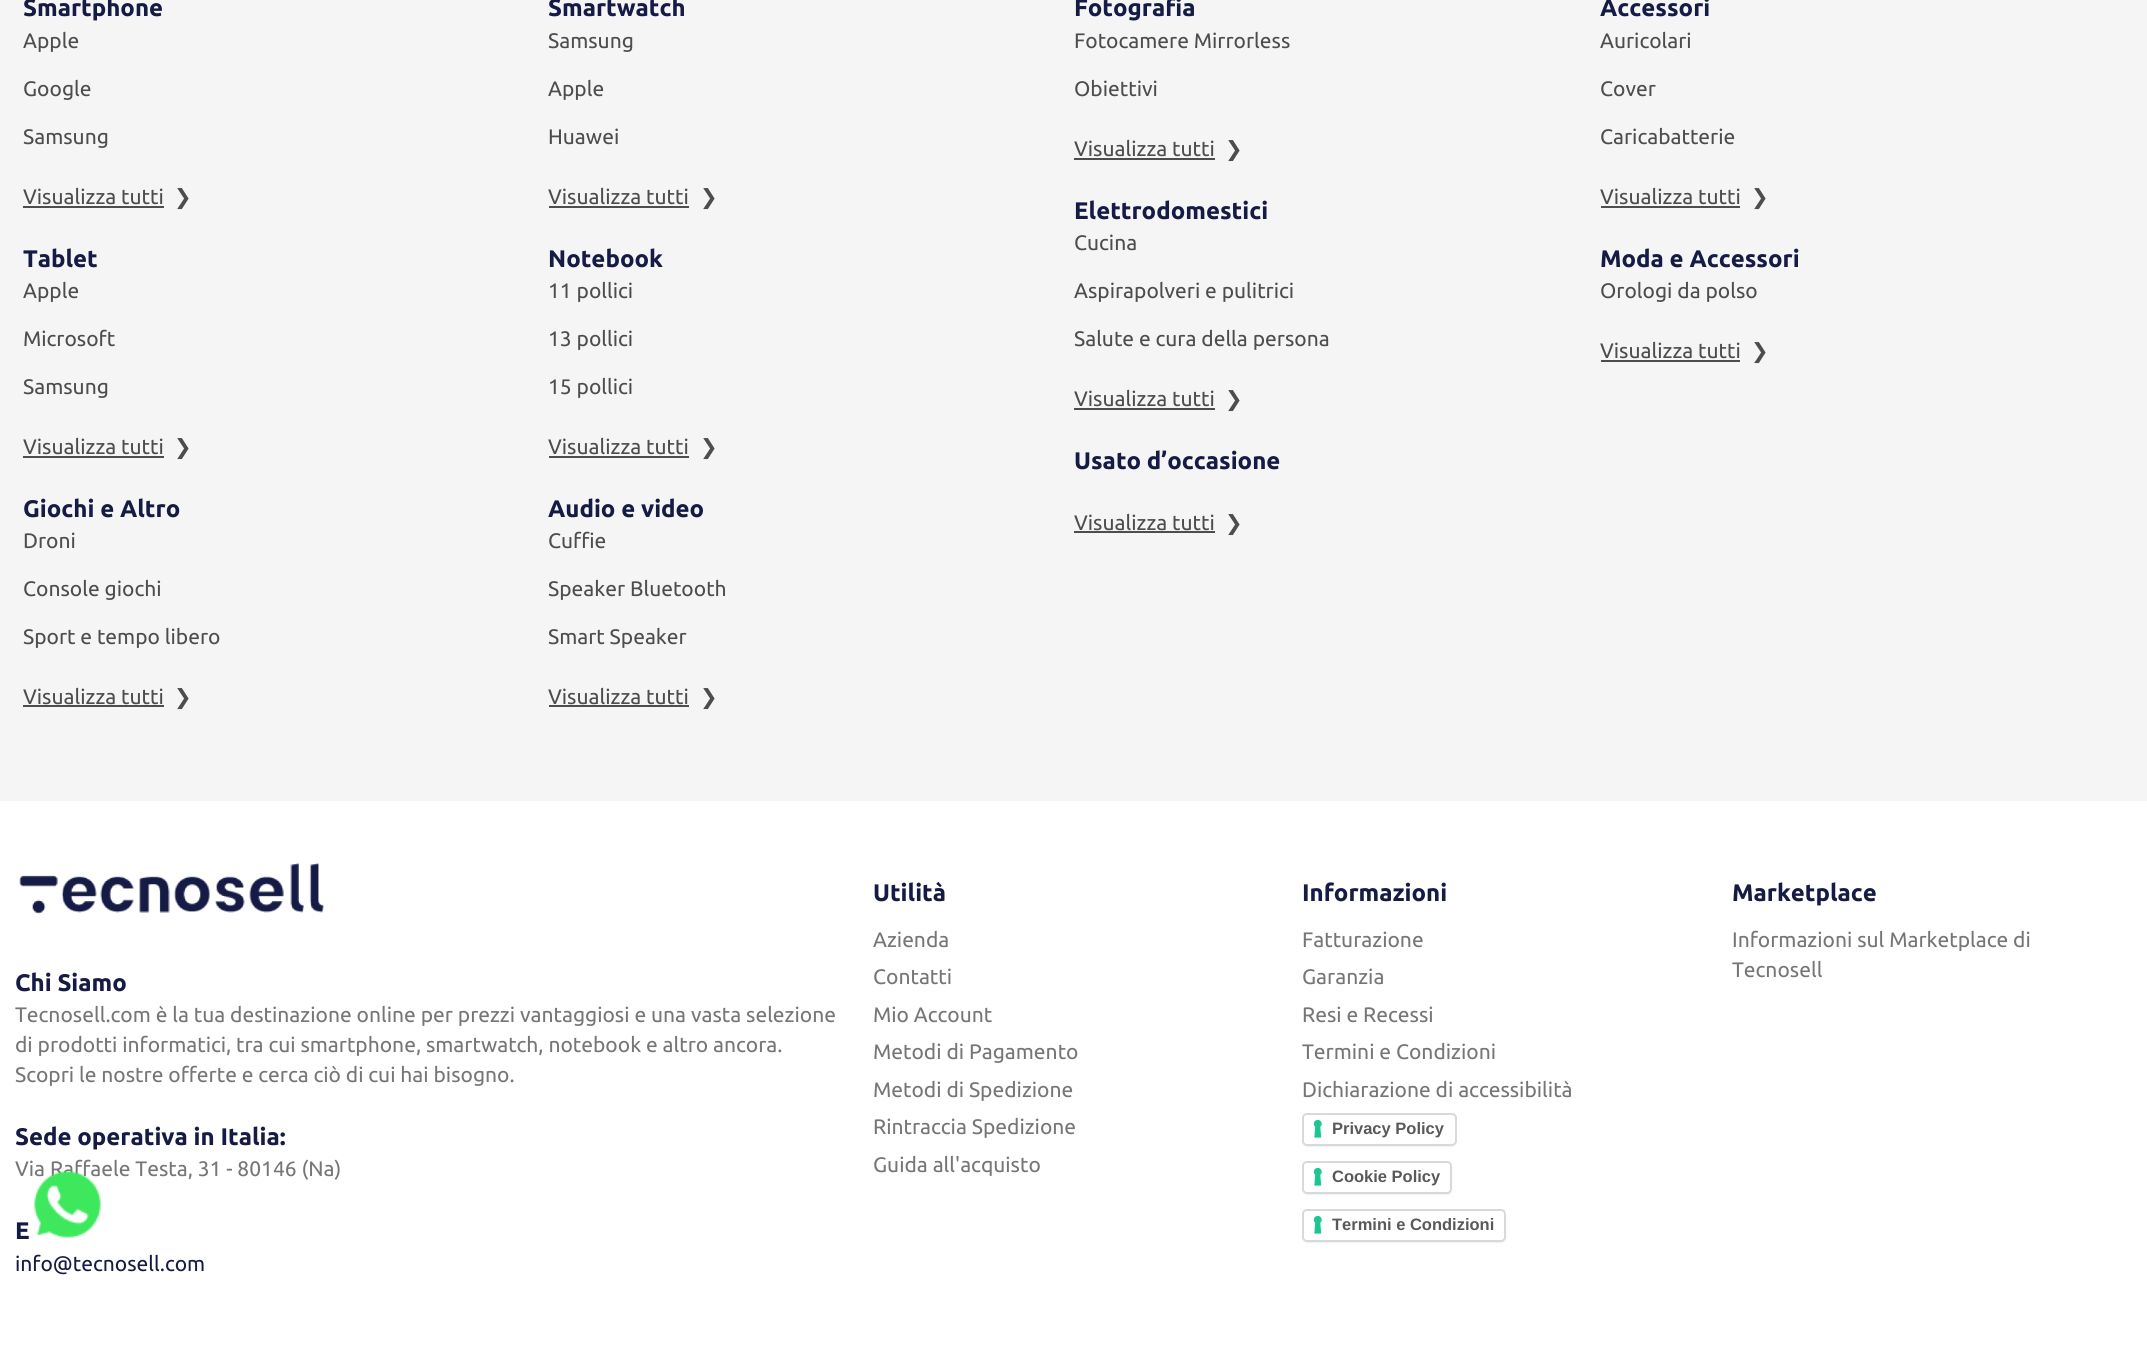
import math
import cairo

surface = cairo.ImageSurface(cairo.FORMAT_RGB24, 2147, 1346)
ctx = cairo.Context(surface)
options = cairo.FontOptions()
options.set_hint_metrics(cairo.HINT_METRICS_OFF)
options.set_hint_style(cairo.HINT_STYLE_NONE)
ctx.set_font_options(options)
ctx.set_miter_limit(4)


def set_color(code):
    ctx.set_source_rgb(*(v / 255 for v in bytes.fromhex(code[-6:])))


def draw_text(x, y, s, family, size, color, bold=False, italic=False):
    ctx.select_font_face(family, cairo.FONT_SLANT_ITALIC if italic else cairo.FONT_SLANT_NORMAL, cairo.FONT_WEIGHT_BOLD if bold else cairo.FONT_WEIGHT_NORMAL)
    ctx.set_font_size(size)
    set_color(color)
    ctx.move_to(x, y)
    ctx.show_text(s)


def fill_rect(x, y, w, h, color):
    set_color(color)
    ctx.rectangle(x, y, w, h)
    ctx.fill()


def rounded_rect(x, y, w, h, r):
    ctx.new_sub_path()
    for i, (u, v) in enumerate([(x + w - r, y + h - r), (x + r, y + h - r), (x + r, y + r), (x + w - r, y + r)]):
        ctx.arc(u, v, r, i * math.pi / 2, (i + 1) * math.pi / 2)
    ctx.close_path()


def draw_shadow(x, y, w, h, r, blur, alpha):
    ctx.push_group_with_content(cairo.CONTENT_ALPHA)
    ctx.set_operator(cairo.OPERATOR_SOURCE)
    for i in range(15, -16, -2):
        e = blur * i / 6
        if min(w, h) + 2 * e > 0:
            ctx.set_source_rgba(0, 0, 0, alpha * math.erfc((i - 1) / 8.5) / 2)
            rounded_rect(x - e, y - e, w + 2 * e, h + 2 * e, max(0, min(r + e + blur * .6, min(w, h) / 2 + e)))
            ctx.fill()
    ctx.mask(ctx.pop_group())


def draw_image(path, x, y, w, h):
    ctx.save()
    ctx.set_source_surface(cairo.ImageSurface.create_from_png(path), x, y)
    ctx.rectangle(x, y, w, h)
    ctx.fill()
    ctx.restore()


set_color("#f5f5f5")
ctx.paint()
draw_text(23, 16, "Smartphone", "Ubuntu", 24, "#151b45", bold=True)
draw_text(23, 48, "Apple", "Ubuntu", 21, "#4d4d4d")
draw_text(23, 96, "Google", "Ubuntu", 21, "#4d4d4d")
draw_text(23, 144, "Samsung", "Ubuntu", 21, "#4d4d4d")
draw_text(23, 204, "Visualizza tutti", "Ubuntu", 21, "#4d4d4d")
fill_rect(23, 206, 141, 2, "#4d4d4d")
draw_text(174, 204, "❯", "DejaVu Sans", 21, "#4d4d4d")
draw_text(23, 267, "Tablet", "Ubuntu", 24, "#151b45", bold=True)
draw_text(23, 298, "Apple", "Ubuntu", 21, "#4d4d4d")
draw_text(23, 346, "Microsoft", "Ubuntu", 21, "#4d4d4d")
draw_text(23, 394, "Samsung", "Ubuntu", 21, "#4d4d4d")
draw_text(23, 454, "Visualizza tutti", "Ubuntu", 21, "#4d4d4d")
fill_rect(23, 456, 141, 2, "#4d4d4d")
draw_text(174, 454, "❯", "DejaVu Sans", 21, "#4d4d4d")
draw_text(23, 517, "Giochi e Altro", "Ubuntu", 24, "#151b45", bold=True)
draw_text(23, 548, "Droni", "Ubuntu", 21, "#4d4d4d")
draw_text(23, 596, "Console giochi", "Ubuntu", 21, "#4d4d4d")
draw_text(23, 644, "Sport e tempo libero", "Ubuntu", 21, "#4d4d4d")
draw_text(23, 704, "Visualizza tutti", "Ubuntu", 21, "#4d4d4d")
fill_rect(23, 705, 141, 2, "#4d4d4d")
draw_text(174, 704, "❯", "DejaVu Sans", 21, "#4d4d4d")
draw_text(548, 16, "Smartwatch", "Ubuntu", 24, "#151b45", bold=True)
draw_text(548, 48, "Samsung", "Ubuntu", 21, "#4d4d4d")
draw_text(548, 96, "Apple", "Ubuntu", 21, "#4d4d4d")
draw_text(548, 144, "Huawei", "Ubuntu", 21, "#4d4d4d")
draw_text(548, 204, "Visualizza tutti", "Ubuntu", 21, "#4d4d4d")
fill_rect(549, 206, 140, 2, "#4d4d4d")
draw_text(700, 204, "❯", "DejaVu Sans", 21, "#4d4d4d")
draw_text(548, 267, "Notebook", "Ubuntu", 24, "#151b45", bold=True)
draw_text(548, 298, "11 pollici", "Ubuntu", 21, "#4d4d4d")
draw_text(548, 346, "13 pollici", "Ubuntu", 21, "#4d4d4d")
draw_text(548, 394, "15 pollici", "Ubuntu", 21, "#4d4d4d")
draw_text(548, 454, "Visualizza tutti", "Ubuntu", 21, "#4d4d4d")
fill_rect(549, 456, 140, 2, "#4d4d4d")
draw_text(700, 454, "❯", "DejaVu Sans", 21, "#4d4d4d")
draw_text(548, 517, "Audio e video", "Ubuntu", 24, "#151b45", bold=True)
draw_text(548, 548, "Cuffie", "Ubuntu", 21, "#4d4d4d")
draw_text(548, 596, "Speaker Bluetooth", "Ubuntu", 21, "#4d4d4d")
draw_text(548, 644, "Smart Speaker", "Ubuntu", 21, "#4d4d4d")
draw_text(548, 704, "Visualizza tutti", "Ubuntu", 21, "#4d4d4d")
fill_rect(549, 705, 140, 2, "#4d4d4d")
draw_text(700, 704, "❯", "DejaVu Sans", 21, "#4d4d4d")
draw_text(1074, 16, "Fotografia", "Ubuntu", 24, "#151b45", bold=True)
draw_text(1074, 48, "Fotocamere Mirrorless", "Ubuntu", 21, "#4d4d4d")
draw_text(1074, 96, "Obiettivi", "Ubuntu", 21, "#4d4d4d")
draw_text(1074, 156, "Visualizza tutti", "Ubuntu", 21, "#4d4d4d")
fill_rect(1074, 158, 141, 2, "#4d4d4d")
draw_text(1225, 156, "❯", "DejaVu Sans", 21, "#4d4d4d")
draw_text(1074, 219, "Elettrodomestici", "Ubuntu", 24, "#151b45", bold=True)
draw_text(1074, 250, "Cucina", "Ubuntu", 21, "#4d4d4d")
draw_text(1074, 298, "Aspirapolveri e pulitrici", "Ubuntu", 21, "#4d4d4d")
draw_text(1074, 346, "Salute e cura della persona", "Ubuntu", 21, "#4d4d4d")
draw_text(1074, 406, "Visualizza tutti", "Ubuntu", 21, "#4d4d4d")
fill_rect(1074, 408, 141, 2, "#4d4d4d")
draw_text(1225, 406, "❯", "DejaVu Sans", 21, "#4d4d4d")
draw_text(1074, 469, "Usato d’occasione", "Ubuntu", 24, "#151b45", bold=True)
draw_text(1074, 530, "Visualizza tutti", "Ubuntu", 21, "#4d4d4d")
fill_rect(1074, 531, 141, 2, "#4d4d4d")
draw_text(1225, 530, "❯", "DejaVu Sans", 21, "#4d4d4d")
draw_text(1600, 16, "Accessori", "Ubuntu", 24, "#151b45", bold=True)
draw_text(1600, 48, "Auricolari", "Ubuntu", 21, "#4d4d4d")
draw_text(1600, 96, "Cover", "Ubuntu", 21, "#4d4d4d")
draw_text(1600, 144, "Caricabatterie", "Ubuntu", 21, "#4d4d4d")
draw_text(1600, 204, "Visualizza tutti", "Ubuntu", 21, "#4d4d4d")
fill_rect(1601, 206, 139, 2, "#4d4d4d")
draw_text(1751, 204, "❯", "DejaVu Sans", 21, "#4d4d4d")
draw_text(1600, 267, "Moda e Accessori", "Ubuntu", 24, "#151b45", bold=True)
draw_text(1600, 298, "Orologi da polso", "Ubuntu", 21, "#4d4d4d")
draw_text(1600, 358, "Visualizza tutti", "Ubuntu", 21, "#4d4d4d")
fill_rect(1601, 360, 139, 2, "#4d4d4d")
draw_text(1751, 358, "❯", "DejaVu Sans", 21, "#4d4d4d")
fill_rect(0, 801, 2147, 545, "#ffffff")
draw_text(873, 901, "Utilità", "Ubuntu", 24, "#151b45", bold=True)
draw_text(873, 947, "Azienda", "Ubuntu", 21, "#767676")
draw_text(873, 984, "Contatti", "Ubuntu", 21, "#767676")
draw_text(873, 1022, "Mio Account", "Ubuntu", 21, "#767676")
draw_text(873, 1059, "Metodi di Pagamento", "Ubuntu", 21, "#767676")
draw_text(873, 1097, "Metodi di Spedizione", "Ubuntu", 21, "#767676")
draw_text(873, 1134, "Rintraccia Spedizione", "Ubuntu", 21, "#767676")
draw_text(873, 1172, "Guida all'acquisto", "Ubuntu", 21, "#767676")
draw_text(1302, 901, "Informazioni", "Ubuntu", 24, "#151b45", bold=True)
draw_text(1302, 947, "Fatturazione", "Ubuntu", 21, "#767676")
draw_text(1302, 984, "Garanzia", "Ubuntu", 21, "#767676")
draw_text(1302, 1022, "Resi e Recessi", "Ubuntu", 21, "#767676")
draw_text(1302, 1059, "Termini e Condizioni", "Ubuntu", 21, "#767676")
draw_text(1302, 1097, "Dichiarazione di accessibilità", "Ubuntu", 21, "#767676")
set_color("#000000")
draw_shadow(1304, 1116, 151, 30, 3, 1, 0.15)
set_color("#ffffff")
rounded_rect(1302, 1113, 155, 33, 5)
ctx.fill()
draw_image("assets/img1.png", 1313, 1119, 9, 19)
rounded_rect(1303, 1114, 153, 31, 4)
set_color("#d9d9d9")
ctx.stroke()
draw_text(1332, 1134, "Privacy Policy", "Liberation Sans", 16.5, "#595959", bold=True)
set_color("#000000")
draw_shadow(1304, 1164, 147, 30, 3, 1, 0.15)
set_color("#ffffff")
rounded_rect(1302, 1161, 150, 33, 5)
ctx.fill()
draw_image("assets/img1.png", 1313, 1167, 9, 19)
rounded_rect(1303, 1162, 148, 31, 4)
set_color("#d9d9d9")
ctx.stroke()
draw_text(1332, 1182, "Cookie Policy", "Liberation Sans", 16.5, "#595959", bold=True)
set_color("#000000")
draw_shadow(1304, 1212, 201, 30, 3, 1, 0.15)
set_color("#ffffff")
rounded_rect(1302, 1209, 204, 33, 5)
ctx.fill()
draw_image("assets/img1.png", 1313, 1215, 9, 19)
rounded_rect(1303, 1210, 202, 31, 4)
set_color("#d9d9d9")
ctx.stroke()
draw_text(1332, 1230, "Termini e Condizioni", "Liberation Sans", 16.5, "#595959", bold=True)
draw_text(1732, 901, "Marketplace", "Ubuntu", 24, "#151b45", bold=True)
draw_text(1732, 947, "Informazioni sul Marketplace di", "Ubuntu", 21, "#767676")
draw_text(1732, 977, "Tecnosell", "Ubuntu", 21, "#767676")
draw_image("assets/img2.png", 19, 863, 305, 51)
draw_text(15, 991, "Chi Siamo", "Ubuntu", 24, "#151b45", bold=True)
draw_text(15, 1022, "Tecnosell.com è la tua destinazione online per prezzi vantaggiosi e una vasta selezione", "Ubuntu", 21, "#767676")
draw_text(15, 1052, "di prodotti informatici, tra cui smartphone, smartwatch, notebook e altro ancora.", "Ubuntu", 21, "#767676")
draw_text(15, 1082, "Scopri le nostre offerte e cerca ciò di cui hai bisogno.", "Ubuntu", 21, "#767676")
draw_text(15, 1145, "Sede operativa in Italia:", "Ubuntu", 24, "#151b45", bold=True)
draw_text(15, 1176, "Via Raffaele Testa, 31 - 80146 (Na)", "Ubuntu", 21, "#767676")
draw_text(15, 1239, "E", "Ubuntu", 24, "#151b45", bold=True)
draw_text(15, 1271, "info@tecnosell.com", "Ubuntu", 21, "#151b45")
draw_image("assets/img3.png", 34, 1171, 67, 67)
surface.write_to_png("output.png")
